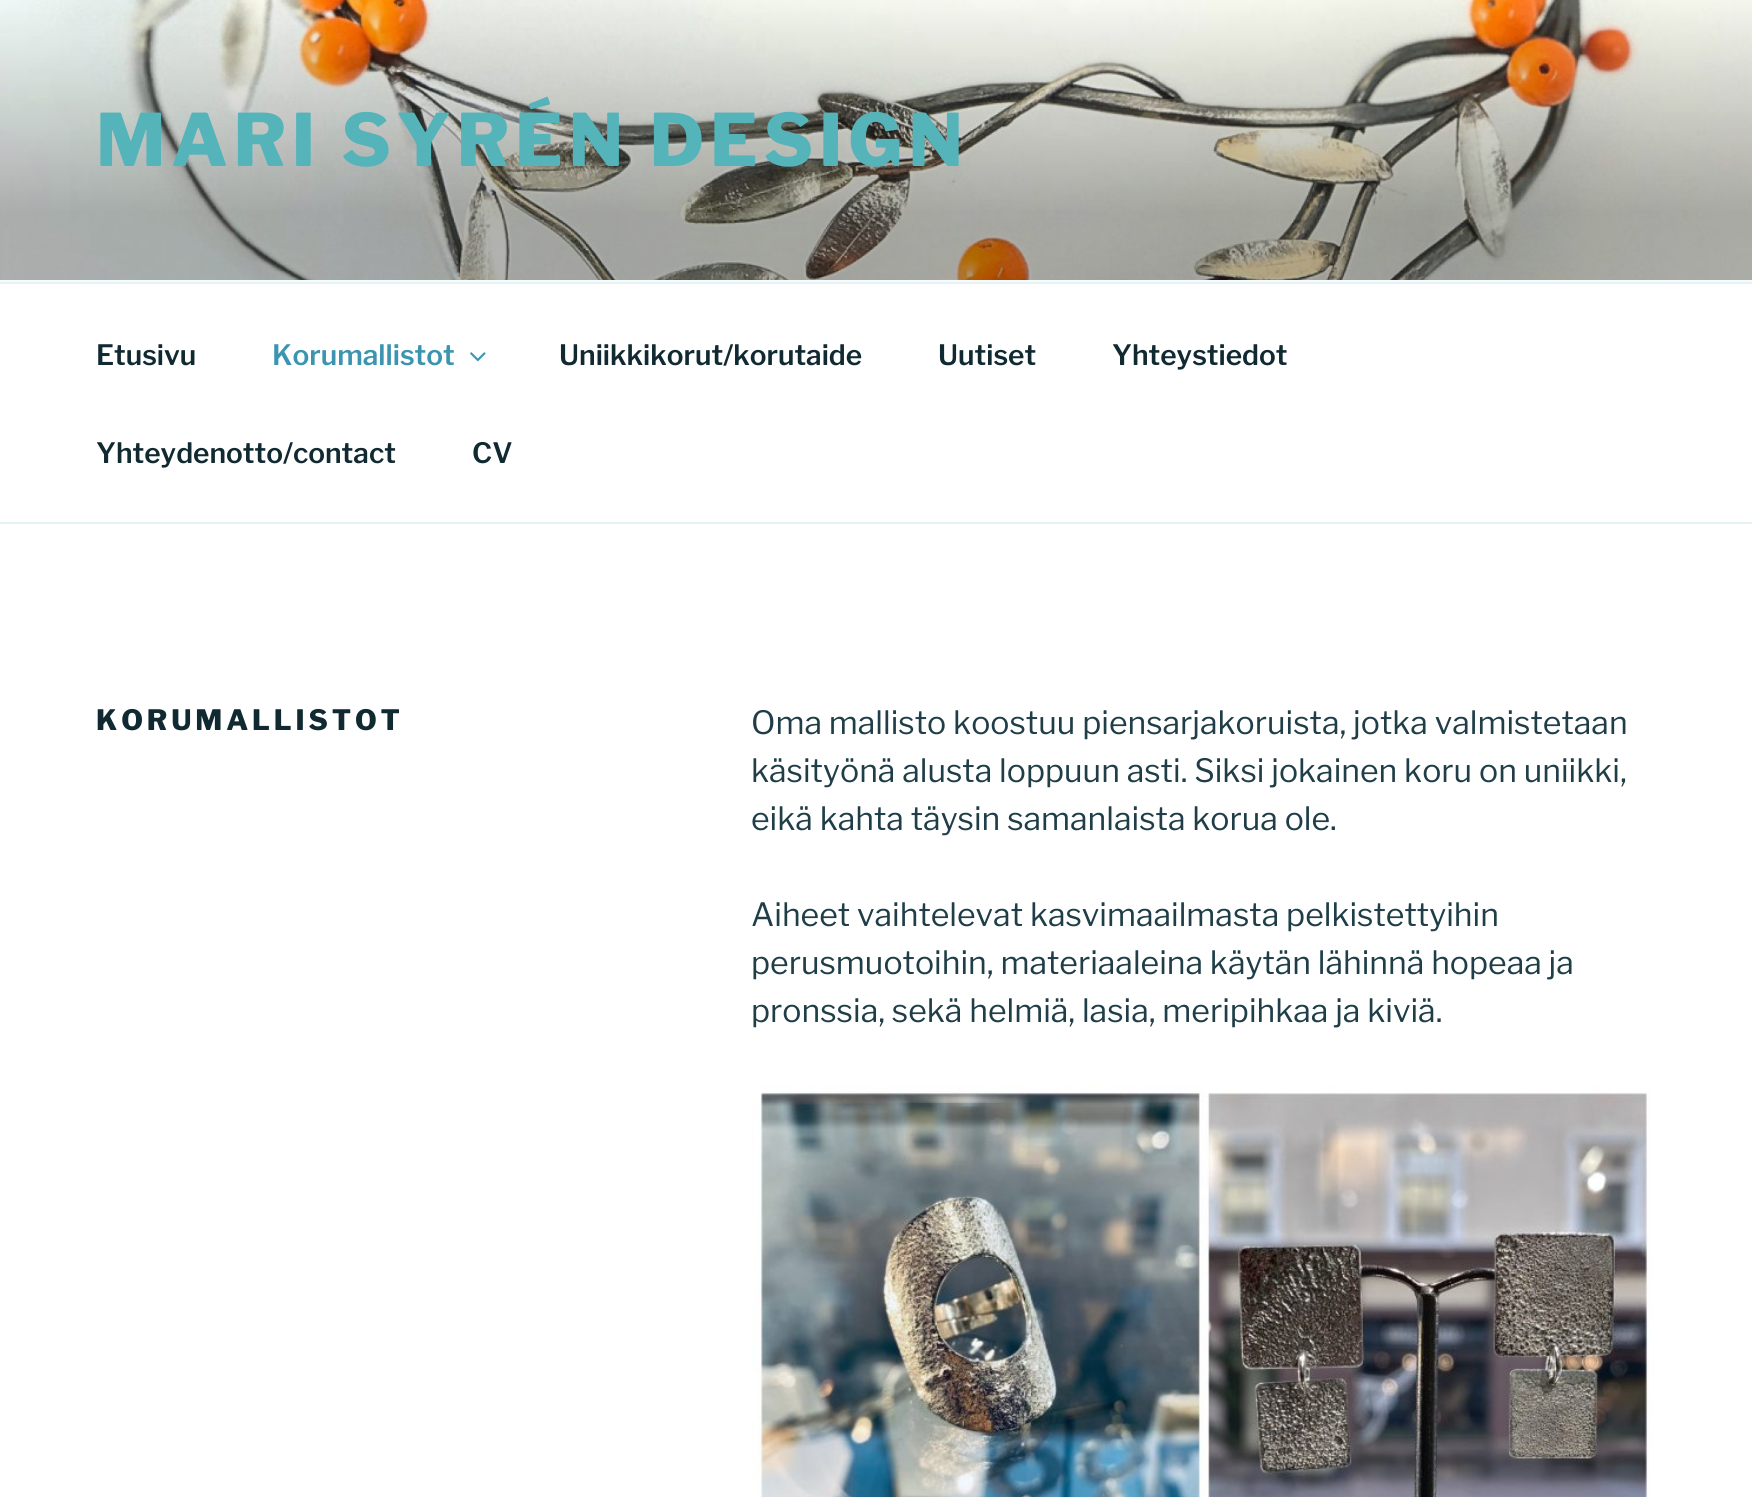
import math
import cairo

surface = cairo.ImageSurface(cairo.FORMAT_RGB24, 1752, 1497)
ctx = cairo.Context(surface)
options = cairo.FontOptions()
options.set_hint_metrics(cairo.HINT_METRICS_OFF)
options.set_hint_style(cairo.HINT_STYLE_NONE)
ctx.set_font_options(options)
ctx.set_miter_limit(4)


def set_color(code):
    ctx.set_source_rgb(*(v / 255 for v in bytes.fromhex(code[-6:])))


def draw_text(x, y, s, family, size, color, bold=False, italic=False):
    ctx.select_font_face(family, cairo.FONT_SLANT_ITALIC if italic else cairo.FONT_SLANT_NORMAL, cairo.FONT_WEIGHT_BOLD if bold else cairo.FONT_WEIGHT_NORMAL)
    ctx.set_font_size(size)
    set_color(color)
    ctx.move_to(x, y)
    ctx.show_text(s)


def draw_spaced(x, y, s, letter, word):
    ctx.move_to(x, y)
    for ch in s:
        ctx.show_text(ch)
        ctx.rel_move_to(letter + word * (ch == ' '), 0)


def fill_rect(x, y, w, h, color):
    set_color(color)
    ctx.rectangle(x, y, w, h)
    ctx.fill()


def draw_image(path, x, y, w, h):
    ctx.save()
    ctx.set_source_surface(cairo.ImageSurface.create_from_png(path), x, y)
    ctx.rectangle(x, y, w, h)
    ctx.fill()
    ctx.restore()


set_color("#ffffff")
ctx.paint()
fill_rect(0, 280, 1752, 2, "#f7fbfc")
draw_image("assets/img1.png", 0, 0, 1752, 280)
ctx.select_font_face("Libre Franklin ExtraBold")
ctx.set_font_size(72)
set_color("#55b3ba")
draw_spaced(96, 166, "MARI SYRÉN DESIGN", 5.75, 0)
fill_rect(0, 282, 1752, 2, "#e4f2f6")
fill_rect(0, 522, 1752, 2, "#e4f2f6")
draw_text(96, 365, "Etusivu", "Libre Franklin SemiBold", 28, "#112a32")
draw_text(272, 365, "Korumallistot", "Libre Franklin SemiBold", 28, "#3b95b0")
draw_image("assets/img2.png", 470, 352, 16, 10)
draw_text(559, 365, "Uniikkikorut/korutaide", "Libre Franklin SemiBold", 28, "#112a32")
draw_text(938, 365, "Uutiset", "Libre Franklin SemiBold", 28, "#112a32")
draw_text(1112, 365, "Yhteystiedot", "Libre Franklin SemiBold", 28, "#112a32")
draw_text(96, 463, "Yhteydenotto/contact", "Libre Franklin SemiBold", 28, "#112a32")
draw_text(472, 463, "CV", "Libre Franklin SemiBold", 28, "#112a32")
ctx.select_font_face("Libre Franklin ExtraBold")
draw_spaced(96, 730, "KORUMALLISTOT", 3.9, 0)
draw_text(751, 734, "Oma mallisto koostuu piensarjakoruista, jotka valmistetaan", "Libre Franklin", 32, "#1f3e47")
draw_text(751, 782, "käsityönä alusta loppuun asti. Siksi jokainen koru on uniikki,", "Libre Franklin", 32, "#1f3e47")
draw_text(751, 830, "eikä kahta täysin samanlaista korua ole.", "Libre Franklin", 32, "#1f3e47")
draw_text(751, 926, "Aiheet vaihtelevat kasvimaailmasta pelkistettyihin", "Libre Franklin", 32, "#1f3e47")
draw_text(751, 974, "perusmuotoihin, materiaaleina käytän lähinnä hopeaa ja", "Libre Franklin", 32, "#1f3e47")
draw_text(751, 1022, "pronssia, sekä helmiä, lasia, meripihkaa ja kiviä.", "Libre Franklin", 32, "#1f3e47")
draw_image("assets/img3.png", 752, 1084, 901, 413)
surface.write_to_png("output.png")
